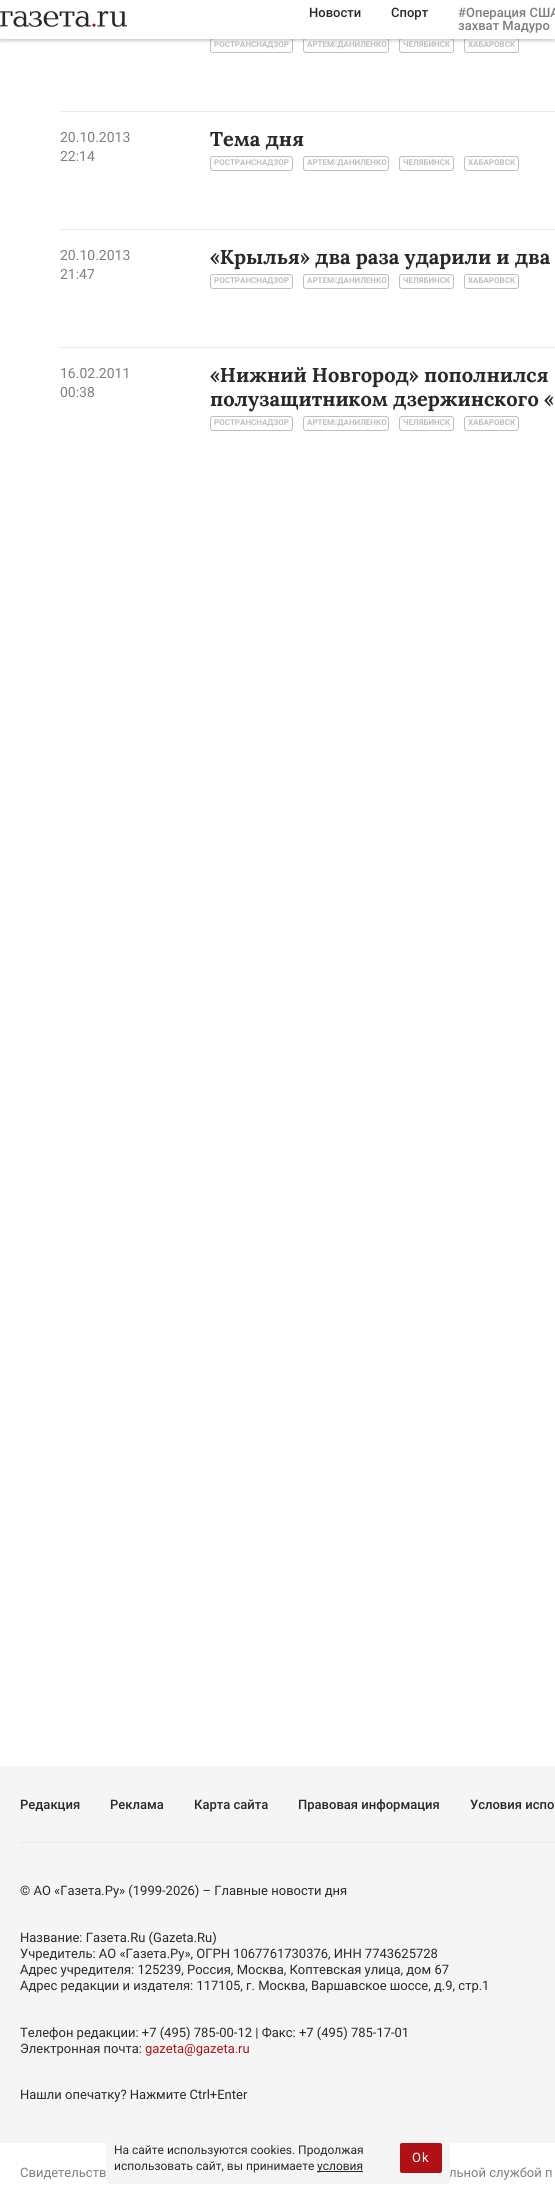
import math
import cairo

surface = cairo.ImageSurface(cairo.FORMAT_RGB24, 555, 2194)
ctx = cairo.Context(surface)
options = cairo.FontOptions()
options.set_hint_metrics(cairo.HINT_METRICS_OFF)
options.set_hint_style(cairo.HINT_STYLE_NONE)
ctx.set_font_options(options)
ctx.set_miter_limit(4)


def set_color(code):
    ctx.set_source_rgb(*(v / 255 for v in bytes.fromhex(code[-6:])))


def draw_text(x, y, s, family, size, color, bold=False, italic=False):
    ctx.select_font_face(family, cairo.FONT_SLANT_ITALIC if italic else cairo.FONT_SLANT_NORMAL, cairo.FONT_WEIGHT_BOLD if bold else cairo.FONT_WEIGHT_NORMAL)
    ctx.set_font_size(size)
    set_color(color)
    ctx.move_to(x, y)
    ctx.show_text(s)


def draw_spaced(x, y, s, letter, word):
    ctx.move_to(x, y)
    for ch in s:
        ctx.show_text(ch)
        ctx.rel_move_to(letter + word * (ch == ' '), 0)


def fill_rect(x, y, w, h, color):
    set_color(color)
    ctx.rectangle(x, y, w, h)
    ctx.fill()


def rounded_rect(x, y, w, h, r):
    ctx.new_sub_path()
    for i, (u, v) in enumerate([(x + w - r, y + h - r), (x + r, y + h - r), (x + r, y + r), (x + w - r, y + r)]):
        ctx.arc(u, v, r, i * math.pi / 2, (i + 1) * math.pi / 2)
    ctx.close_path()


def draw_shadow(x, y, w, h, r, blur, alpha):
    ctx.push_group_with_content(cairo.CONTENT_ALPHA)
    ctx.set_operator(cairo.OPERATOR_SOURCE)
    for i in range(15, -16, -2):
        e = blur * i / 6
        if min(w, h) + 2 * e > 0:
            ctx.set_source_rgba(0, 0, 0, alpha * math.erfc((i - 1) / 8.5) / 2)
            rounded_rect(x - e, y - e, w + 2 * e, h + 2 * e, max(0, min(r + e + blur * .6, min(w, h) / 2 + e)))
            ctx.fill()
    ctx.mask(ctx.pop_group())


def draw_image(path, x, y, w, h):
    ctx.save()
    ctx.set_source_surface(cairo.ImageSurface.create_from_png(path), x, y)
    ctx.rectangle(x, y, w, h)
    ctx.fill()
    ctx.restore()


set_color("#ffffff")
ctx.paint()
rounded_rect(210.5, 38.5, 82, 14, 2.5)
set_color("#bfbfbf")
ctx.set_line_width(1)
ctx.stroke()
rounded_rect(303.5, 38.5, 85, 14, 2.5)
ctx.stroke()
rounded_rect(399.5, 38.5, 54, 14, 2.5)
ctx.stroke()
rounded_rect(464.5, 38.5, 54, 14, 2.5)
ctx.stroke()
set_color("#000000")
draw_shadow(0, 1, 555, 40, 0, 1.5, 0.2)
fill_rect(0, 0, 555, 39, "#ffffff")
draw_image("assets/img1.png", 0, 11, 127, 16)
draw_text(309, 17, "Новости", "Roboto Medium", 13, "#292929")
draw_text(391, 17, "Спорт", "Roboto Medium", 13, "#292929")
draw_text(458, 17, "#Операция США", "Roboto Medium", 13, "#7f7f7f")
draw_text(458, 30, "захват Мадуро", "Roboto Medium", 13, "#7f7f7f")
draw_text(214, 47, "РОСТРАНСНАДЗОР", "Roboto", 8, "#bfbfbf", bold=True)
draw_text(307, 47, "АРТЕМ ДАНИЛЕНКО", "Roboto", 8, "#bfbfbf", bold=True)
draw_text(403, 47, "ЧЕЛЯБИНСК", "Roboto", 8, "#bfbfbf", bold=True)
draw_text(468, 47, "ХАБАРОВСК", "Roboto", 8, "#bfbfbf", bold=True)
fill_rect(60, 111, 495, 1, "#eaeaea")
draw_text(60, 142, "20.10.2013", "Roboto", 14, "#7f7f7f")
draw_text(60, 161, "22:14", "Roboto", 14, "#7f7f7f")
draw_text(210, 146, "Тема дня", "Lora", 20, "#292929", bold=True)
rounded_rect(210.5, 156.5, 82, 14, 2.5)
set_color("#bfbfbf")
ctx.stroke()
draw_text(214, 165, "РОСТРАНСНАДЗОР", "Roboto", 8, "#bfbfbf", bold=True)
rounded_rect(303.5, 156.5, 85, 14, 2.5)
ctx.stroke()
draw_text(307, 165, "АРТЕМ ДАНИЛЕНКО", "Roboto", 8, "#bfbfbf", bold=True)
rounded_rect(399.5, 156.5, 54, 14, 2.5)
ctx.stroke()
draw_text(403, 165, "ЧЕЛЯБИНСК", "Roboto", 8, "#bfbfbf", bold=True)
rounded_rect(464.5, 156.5, 54, 14, 2.5)
ctx.stroke()
draw_text(468, 165, "ХАБАРОВСК", "Roboto", 8, "#bfbfbf", bold=True)
fill_rect(60, 229, 495, 1, "#eaeaea")
draw_text(60, 260, "20.10.2013", "Roboto", 14, "#7f7f7f")
draw_text(60, 279, "21:47", "Roboto", 14, "#7f7f7f")
draw_text(210, 264, "«Крылья» два раза ударили и два", "Lora", 20, "#292929", bold=True)
rounded_rect(210.5, 274.5, 82, 14, 2.5)
set_color("#bfbfbf")
ctx.stroke()
draw_text(214, 283, "РОСТРАНСНАДЗОР", "Roboto", 8, "#bfbfbf", bold=True)
rounded_rect(303.5, 274.5, 85, 14, 2.5)
ctx.stroke()
draw_text(307, 283, "АРТЕМ ДАНИЛЕНКО", "Roboto", 8, "#bfbfbf", bold=True)
rounded_rect(399.5, 274.5, 54, 14, 2.5)
ctx.stroke()
draw_text(403, 283, "ЧЕЛЯБИНСК", "Roboto", 8, "#bfbfbf", bold=True)
rounded_rect(464.5, 274.5, 54, 14, 2.5)
ctx.stroke()
draw_text(468, 283, "ХАБАРОВСК", "Roboto", 8, "#bfbfbf", bold=True)
fill_rect(60, 347, 495, 1, "#eaeaea")
draw_text(60, 378, "16.02.2011", "Roboto", 14, "#7f7f7f")
draw_text(60, 397, "00:38", "Roboto", 14, "#7f7f7f")
draw_text(210, 382, "«Нижний Новгород» пополнился", "Lora", 20, "#292929", bold=True)
draw_text(210, 406, "полузащитником дзержинского «", "Lora", 20, "#292929", bold=True)
rounded_rect(210.5, 416.5, 82, 14, 2.5)
set_color("#bfbfbf")
ctx.stroke()
draw_text(214, 425, "РОСТРАНСНАДЗОР", "Roboto", 8, "#bfbfbf", bold=True)
rounded_rect(303.5, 416.5, 85, 14, 2.5)
ctx.stroke()
draw_text(307, 425, "АРТЕМ ДАНИЛЕНКО", "Roboto", 8, "#bfbfbf", bold=True)
rounded_rect(399.5, 416.5, 54, 14, 2.5)
ctx.stroke()
draw_text(403, 425, "ЧЕЛЯБИНСК", "Roboto", 8, "#bfbfbf", bold=True)
rounded_rect(464.5, 416.5, 54, 14, 2.5)
ctx.stroke()
draw_text(468, 425, "ХАБАРОВСК", "Roboto", 8, "#bfbfbf", bold=True)
fill_rect(0, 1766, 555, 377, "#f5f5f5")
fill_rect(20, 1842, 535, 1, "#eaeaea")
draw_text(20, 1809, "Редакция", "Roboto Medium", 13, "#292929")
draw_text(110, 1809, "Реклама", "Roboto Medium", 13, "#292929")
draw_text(194, 1809, "Карта сайта", "Roboto Medium", 13, "#292929")
draw_text(298, 1809, "Правовая информация", "Roboto Medium", 13, "#292929")
draw_text(470, 1809, "Условия испо", "Roboto Medium", 13, "#292929")
draw_text(20, 1895, "© АО «Газета.Ру» (1999-2026) – Главные новости дня", "Roboto", 13, "#292929")
draw_text(20, 1942, "Название: Газета.Ru (Gazeta.Ru)", "Roboto", 13, "#292929")
draw_text(20, 1958, "Учредитель: АО «Газета.Ру», ОГРН 1067761730376, ИНН 7743625728", "Roboto", 13, "#292929")
draw_text(20, 1974, "Адрес учредителя: 125239, Россия, Москва, Коптевская улица, дом 67", "Roboto", 13, "#292929")
draw_text(20, 1990, "Адрес редакции и издателя: 117105, г. Москва, Варшавское шоссе, д.9, стр.1", "Roboto", 13, "#292929")
draw_text(20, 2037, "Телефон редакции: +7 (495) 785-00-12 | Факс: +7 (495) 785-17-01", "Roboto", 13, "#292929")
draw_text(20, 2053, "Электронная почта:", "Roboto", 13, "#292929")
draw_text(145, 2053, "gazeta@gazeta.ru", "Roboto", 13, "#b11116")
draw_text(20, 2099, "Нашли опечатку? Нажмите Ctrl+Enter", "Roboto", 13, "#292929")
draw_text(20, 2177, "Свидетельств", "Roboto", 13, "#7f7f7f")
draw_text(449, 2177, "льной службой п", "Roboto", 13, "#7f7f7f")
set_color("#f5f5f5")
rounded_rect(106, 2132, 344, 52, 4)
ctx.fill()
draw_text(114, 2154, "На сайте используются cookies. Продолжая", "Roboto", 12, "#292929")
draw_text(114, 2170, "использовать сайт, вы принимаете", "Roboto", 12, "#292929")
fill_rect(317, 2171, 46, 1, "#292929")
draw_text(317, 2170, "условия", "Roboto", 12, "#292929")
set_color("#b11116")
rounded_rect(400, 2143, 42, 30, 2)
ctx.fill()
ctx.set_font_size(13)
set_color("#ffffff")
draw_spaced(412, 2162, "Ok", 1, 0)
surface.write_to_png("output.png")
